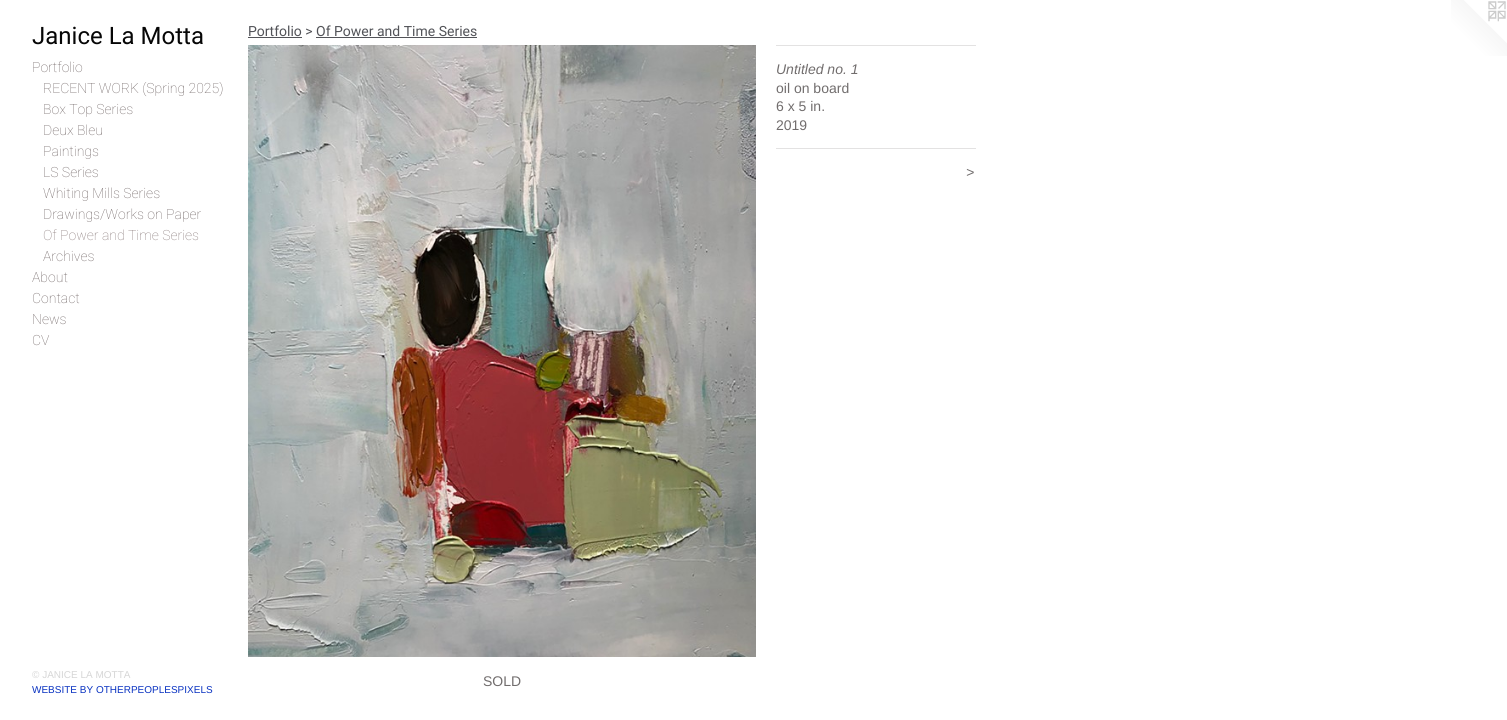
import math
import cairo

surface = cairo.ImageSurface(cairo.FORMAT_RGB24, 1507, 720)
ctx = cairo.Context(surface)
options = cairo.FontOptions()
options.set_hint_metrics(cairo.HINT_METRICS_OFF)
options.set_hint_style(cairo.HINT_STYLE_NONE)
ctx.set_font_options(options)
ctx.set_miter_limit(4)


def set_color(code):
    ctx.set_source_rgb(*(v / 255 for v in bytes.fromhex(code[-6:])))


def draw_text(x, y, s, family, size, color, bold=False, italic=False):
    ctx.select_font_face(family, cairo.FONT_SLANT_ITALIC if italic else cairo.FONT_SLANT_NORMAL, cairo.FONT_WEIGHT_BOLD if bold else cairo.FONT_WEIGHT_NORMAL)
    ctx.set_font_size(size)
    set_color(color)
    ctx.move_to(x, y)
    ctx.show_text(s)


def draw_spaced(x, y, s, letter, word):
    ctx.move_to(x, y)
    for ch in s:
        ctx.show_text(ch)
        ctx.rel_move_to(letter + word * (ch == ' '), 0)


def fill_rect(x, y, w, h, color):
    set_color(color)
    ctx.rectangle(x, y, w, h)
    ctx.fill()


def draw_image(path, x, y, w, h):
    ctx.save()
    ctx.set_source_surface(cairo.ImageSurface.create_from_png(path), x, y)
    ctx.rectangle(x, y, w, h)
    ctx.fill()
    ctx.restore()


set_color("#ffffff")
ctx.paint()
draw_text(32, 44, "Janice La Motta", "Roboto", 24, "#060606")
draw_text(32, 72, "Portfolio", "Roboto Thin", 14, "#6e6363")
draw_text(43, 93, "RECENT WORK (Spring 2025)", "Roboto Thin", 14, "#6e6363")
draw_text(43, 114, "Box Top Series", "Roboto Thin", 14, "#6e6363")
draw_text(43, 135, "Deux Bleu", "Roboto Thin", 14, "#6e6363")
draw_text(43, 156, "Paintings", "Roboto Thin", 14, "#6e6363")
draw_text(43, 177, "LS Series", "Roboto Thin", 14, "#6e6363")
draw_text(43, 198, "Whiting Mills Series", "Roboto Thin", 14, "#6e6363")
draw_text(43, 219, "Drawings/Works on Paper", "Roboto Thin", 14, "#6e6363")
draw_text(43, 240, "Of Power and Time Series", "Roboto Thin", 14, "#897b7b")
draw_text(43, 261, "Archives", "Roboto Thin", 14, "#6e6363")
draw_text(32, 282, "About", "Roboto Thin", 14, "#6e6363")
draw_text(32, 303, "Contact", "Roboto Thin", 14, "#6e6363")
draw_text(32, 324, "News", "Roboto Thin", 14, "#6e6363")
draw_text(32, 345, "CV", "Roboto Thin", 14, "#6e6363")
draw_text(32, 678, "© JANICE LA MOTTA", "Liberation Sans", 10, "#d6d6d6")
draw_text(32, 693, "WEBSITE BY OTHERPEOPLESPIXELS", "Liberation Sans", 10, "#0932c1")
draw_text(248, 36, "Portfolio > Of Power and Time Series", "Roboto", 14, "#525358")
fill_rect(248, 37, 54, 1, "#525358")
fill_rect(316, 37, 161, 1, "#525358")
draw_image("assets/img1.png", 248, 45, 508, 612)
fill_rect(776, 45, 200, 1, "#e3e2e2")
draw_text(776, 74, "Untitled no. 1", "Liberation Sans", 14, "#716d6d", italic=True)
draw_text(776, 93, "oil on board", "Liberation Sans", 14, "#716d6d")
draw_text(776, 111, "6 x 5 in.", "Liberation Sans", 14, "#716d6d")
draw_text(776, 130, "2019", "Liberation Sans", 14, "#716d6d")
fill_rect(776, 148, 200, 1, "#e3e2e2")
ctx.select_font_face("Liberation Sans", cairo.FONT_SLANT_ITALIC)
set_color("#716d6d")
draw_spaced(966, 177, ">", 1, 0)
draw_text(483, 686, "SOLD", "Liberation Sans", 14, "#716d6d")
draw_image("assets/img2.png", 1451, 0, 56, 56)
surface.write_to_png("output.png")
